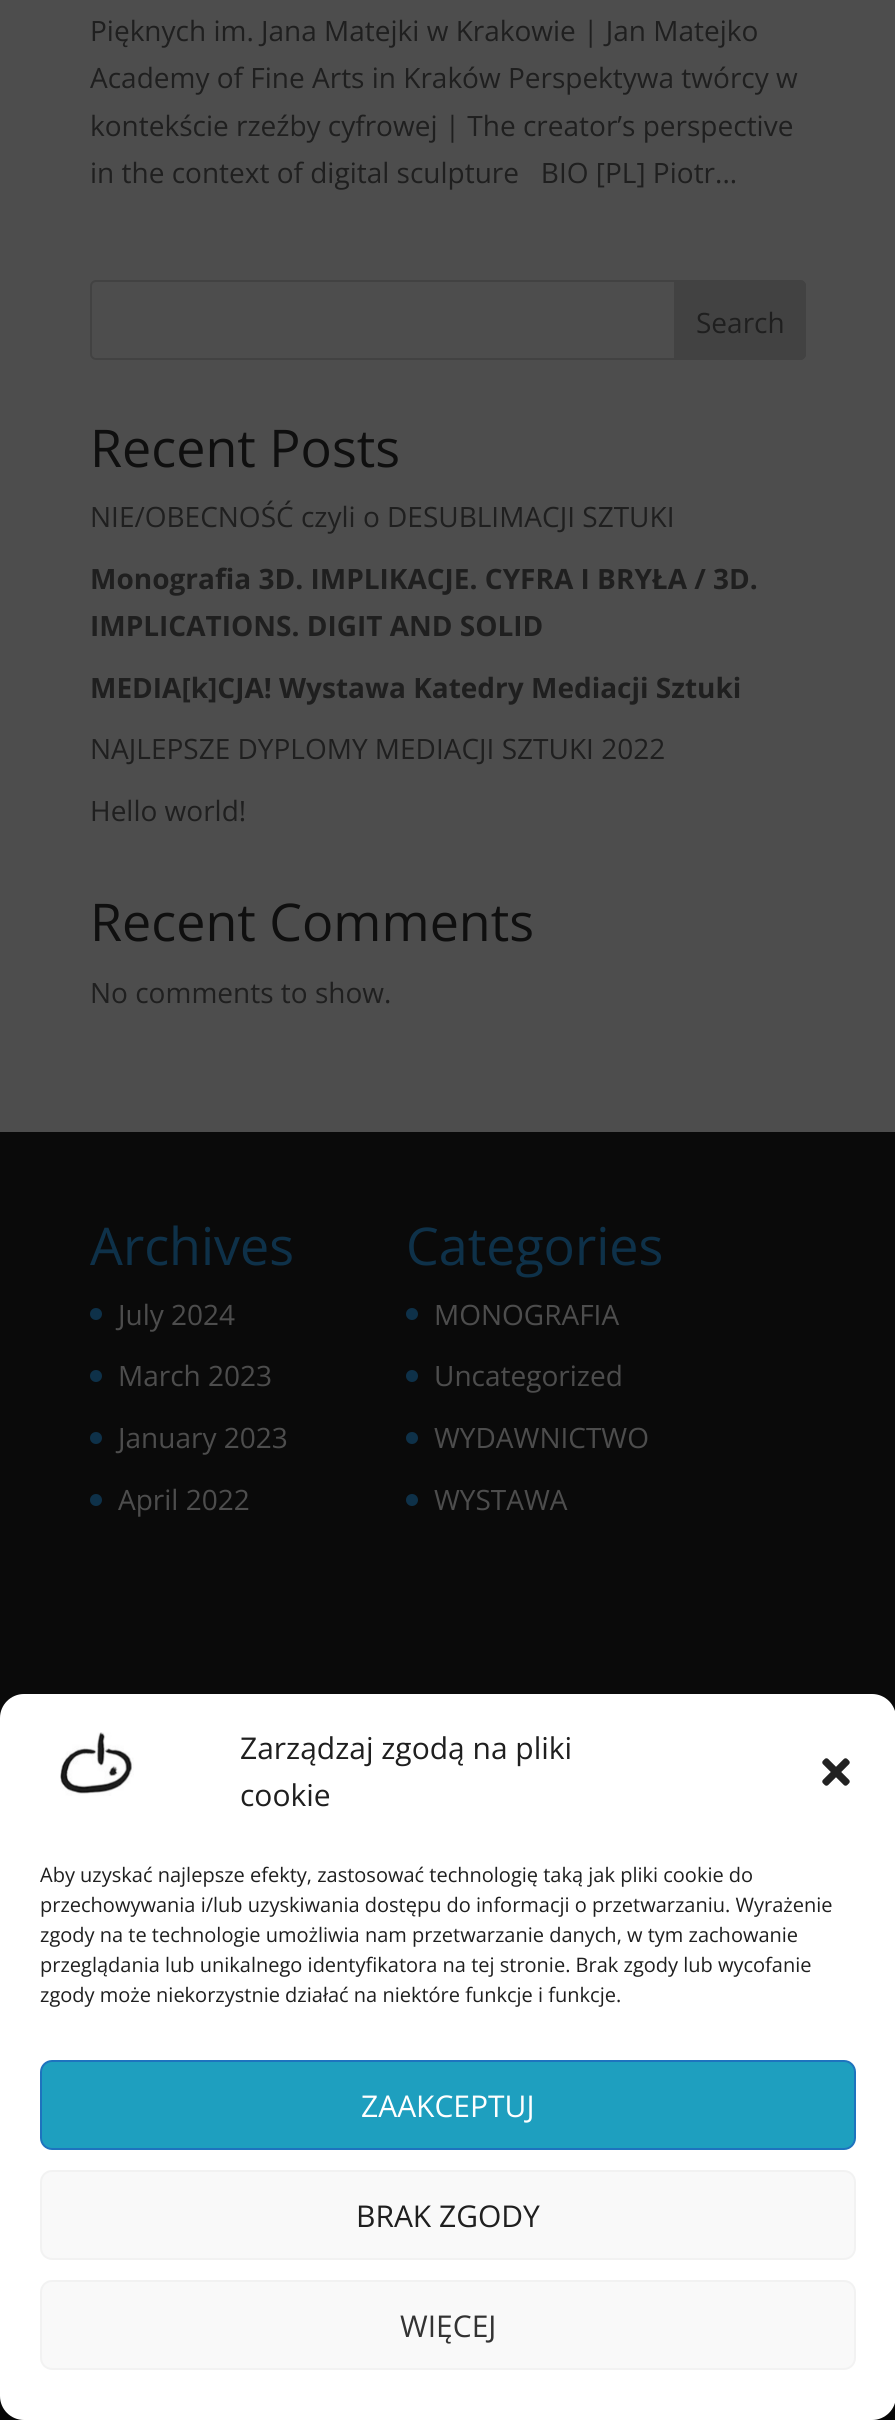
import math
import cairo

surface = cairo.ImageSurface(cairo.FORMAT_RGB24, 895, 2420)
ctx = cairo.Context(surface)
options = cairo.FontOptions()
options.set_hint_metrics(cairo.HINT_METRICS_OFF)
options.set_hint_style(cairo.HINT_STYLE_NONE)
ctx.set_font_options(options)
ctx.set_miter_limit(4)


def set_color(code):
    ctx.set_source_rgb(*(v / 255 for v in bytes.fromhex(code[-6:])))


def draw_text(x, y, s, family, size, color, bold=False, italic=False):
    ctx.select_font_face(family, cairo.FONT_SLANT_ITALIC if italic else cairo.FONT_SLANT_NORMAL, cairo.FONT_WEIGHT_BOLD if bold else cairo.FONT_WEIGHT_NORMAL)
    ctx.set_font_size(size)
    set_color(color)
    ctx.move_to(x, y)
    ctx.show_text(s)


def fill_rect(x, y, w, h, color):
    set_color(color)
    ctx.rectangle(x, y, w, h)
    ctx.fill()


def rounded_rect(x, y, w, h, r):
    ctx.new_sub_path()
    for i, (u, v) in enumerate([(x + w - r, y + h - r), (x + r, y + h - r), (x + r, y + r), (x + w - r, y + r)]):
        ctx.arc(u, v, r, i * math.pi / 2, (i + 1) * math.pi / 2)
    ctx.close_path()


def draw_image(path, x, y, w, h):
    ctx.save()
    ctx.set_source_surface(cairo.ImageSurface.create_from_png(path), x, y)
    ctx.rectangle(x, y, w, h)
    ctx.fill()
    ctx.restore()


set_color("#4d4d4d")
ctx.paint()
draw_text(90, 41, "Pięknych im. Jana Matejki w Krakowie | Jan Matejko", "Open Sans", 28, "#1f1f1f")
draw_text(90, 88, "Academy of Fine Arts in Kraków Perspektywa twórcy w", "Open Sans", 28, "#1f1f1f")
draw_text(90, 136, "kontekście rzeźby cyfrowej | The creator’s perspective", "Open Sans", 28, "#1f1f1f")
draw_text(90, 183, "in the context of digital sculpture   BIO [PL] Piotr...", "Open Sans", 28, "#1f1f1f")
rounded_rect(91, 281, 714, 78, 5)
set_color("#424242")
ctx.stroke()
ctx.new_path()
ctx.move_to(674, 280)
ctx.line_to(800, 280)
ctx.curve_to(803.5, 280, 806, 282.5, 806, 286)
ctx.line_to(806, 354)
ctx.curve_to(806, 357.5, 803.5, 360, 800, 360)
ctx.line_to(674, 360)
ctx.close_path()
ctx.fill()
draw_text(696, 333, "Search", "Open Sans", 28, "#1f1f1f")
draw_text(90, 467, "Recent Posts", "Open Sans", 52, "#0f0f0f")
draw_text(90, 527, "NIE/OBECNOŚĆ czyli o DESUBLIMACJI SZTUKI", "Open Sans", 28, "#1f1f1f")
draw_text(90, 589, "Monografia 3D. IMPLIKACJE. CYFRA I BRYŁA / 3D.", "Open Sans", 28, "#1f1f1f", bold=True)
draw_text(90, 636, "IMPLICATIONS. DIGIT AND SOLID", "Open Sans", 28, "#1f1f1f", bold=True)
draw_text(90, 698, "MEDIA[k]CJA! Wystawa Katedry Mediacji Sztuki", "Open Sans", 28, "#1f1f1f", bold=True)
draw_text(90, 759, "NAJLEPSZE DYPLOMY MEDIACJI SZTUKI 2022", "Open Sans", 28, "#1f1f1f")
draw_text(90, 821, "Hello world!", "Open Sans", 28, "#1f1f1f")
draw_text(90, 941, "Recent Comments", "Open Sans", 52, "#0f0f0f")
draw_text(90, 1003, "No comments to show.", "Open Sans", 28, "#1f1f1f")
fill_rect(0, 1132, 895, 586, "#0a0a0a")
draw_text(90, 1265, "Archives", "Open Sans", 52, "#0e3149")
ctx.new_path()
ctx.arc(96, 1314, 6, 0, 2 * math.pi)
ctx.fill()
draw_text(118, 1325, "July 2024", "Open Sans", 28, "#4d4d4d")
set_color("#0e3149")
ctx.new_path()
ctx.arc(96, 1376, 6, 0, 2 * math.pi)
ctx.fill()
draw_text(118, 1386, "March 2023", "Open Sans", 28, "#4d4d4d")
set_color("#0e3149")
ctx.new_path()
ctx.arc(96, 1438, 6, 0, 2 * math.pi)
ctx.fill()
draw_text(118, 1448, "January 2023", "Open Sans", 28, "#4d4d4d")
set_color("#0e3149")
ctx.new_path()
ctx.arc(96, 1500, 6, 0, 2 * math.pi)
ctx.fill()
draw_text(118, 1510, "April 2022", "Open Sans", 28, "#4d4d4d")
draw_text(406, 1265, "Categories", "Open Sans", 52, "#0e3149")
ctx.new_path()
ctx.arc(412, 1314, 6, 0, 2 * math.pi)
ctx.fill()
draw_text(434, 1325, "MONOGRAFIA", "Open Sans", 28, "#4d4d4d")
set_color("#0e3149")
ctx.new_path()
ctx.arc(412, 1376, 6, 0, 2 * math.pi)
ctx.fill()
draw_text(434, 1386, "Uncategorized", "Open Sans", 28, "#4d4d4d")
set_color("#0e3149")
ctx.new_path()
ctx.arc(412, 1438, 6, 0, 2 * math.pi)
ctx.fill()
draw_text(434, 1448, "WYDAWNICTWO", "Open Sans", 28, "#4d4d4d")
set_color("#0e3149")
ctx.new_path()
ctx.arc(412, 1500, 6, 0, 2 * math.pi)
ctx.fill()
draw_text(434, 1510, "WYSTAWA", "Open Sans", 28, "#4d4d4d")
fill_rect(0, 2396, 895, 24, "#070707")
set_color("#ffffff")
rounded_rect(0, 1694, 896, 726, 24)
ctx.fill()
draw_image("assets/img1.png", 60, 1732, 74, 64)
draw_text(240, 1759, "Zarządzaj zgodą na pliki", "Open Sans", 30, "#1f1f1f")
draw_text(240, 1806, "cookie", "Open Sans", 30, "#1f1f1f")
draw_image("assets/img2.png", 822, 1758, 28, 28)
draw_text(40, 1882, "Aby uzyskać najlepsze efekty, zastosować technologię taką jak pliki cookie do", "Open Sans", 20, "#1f1f1f")
draw_text(40, 1912, "przechowywania i/lub uzyskiwania dostępu do informacji o przetwarzaniu. Wyrażenie", "Open Sans", 20, "#1f1f1f")
draw_text(40, 1942, "zgody na te technologie umożliwia nam przetwarzanie danych, w tym zachowanie", "Open Sans", 20, "#1f1f1f")
draw_text(40, 1972, "przeglądania lub unikalnego identyfikatora na tej stronie. Brak zgody lub wycofanie", "Open Sans", 20, "#1f1f1f")
draw_text(40, 2002, "zgody może niekorzystnie działać na niektóre funkcje i funkcje.", "Open Sans", 20, "#1f1f1f")
set_color("#1e9fbf")
rounded_rect(41, 2061, 814, 88, 11)
ctx.fill_preserve()
set_color("#1e73be")
ctx.stroke()
draw_text(361, 2117, "ZAAKCEPTUJ", "Open Sans", 30, "#ffffff")
set_color("#f9f9f9")
rounded_rect(41, 2171, 814, 88, 11)
ctx.fill_preserve()
set_color("#f2f2f2")
ctx.stroke()
draw_text(356, 2227, "BRAK ZGODY", "Open Sans", 30, "#1f1f1f")
set_color("#f9f9f9")
rounded_rect(41, 2281, 814, 88, 11)
ctx.fill_preserve()
set_color("#f2f2f2")
ctx.stroke()
draw_text(400, 2337, "WIĘCEJ", "Open Sans", 30, "#333333")
surface.write_to_png("output.png")
